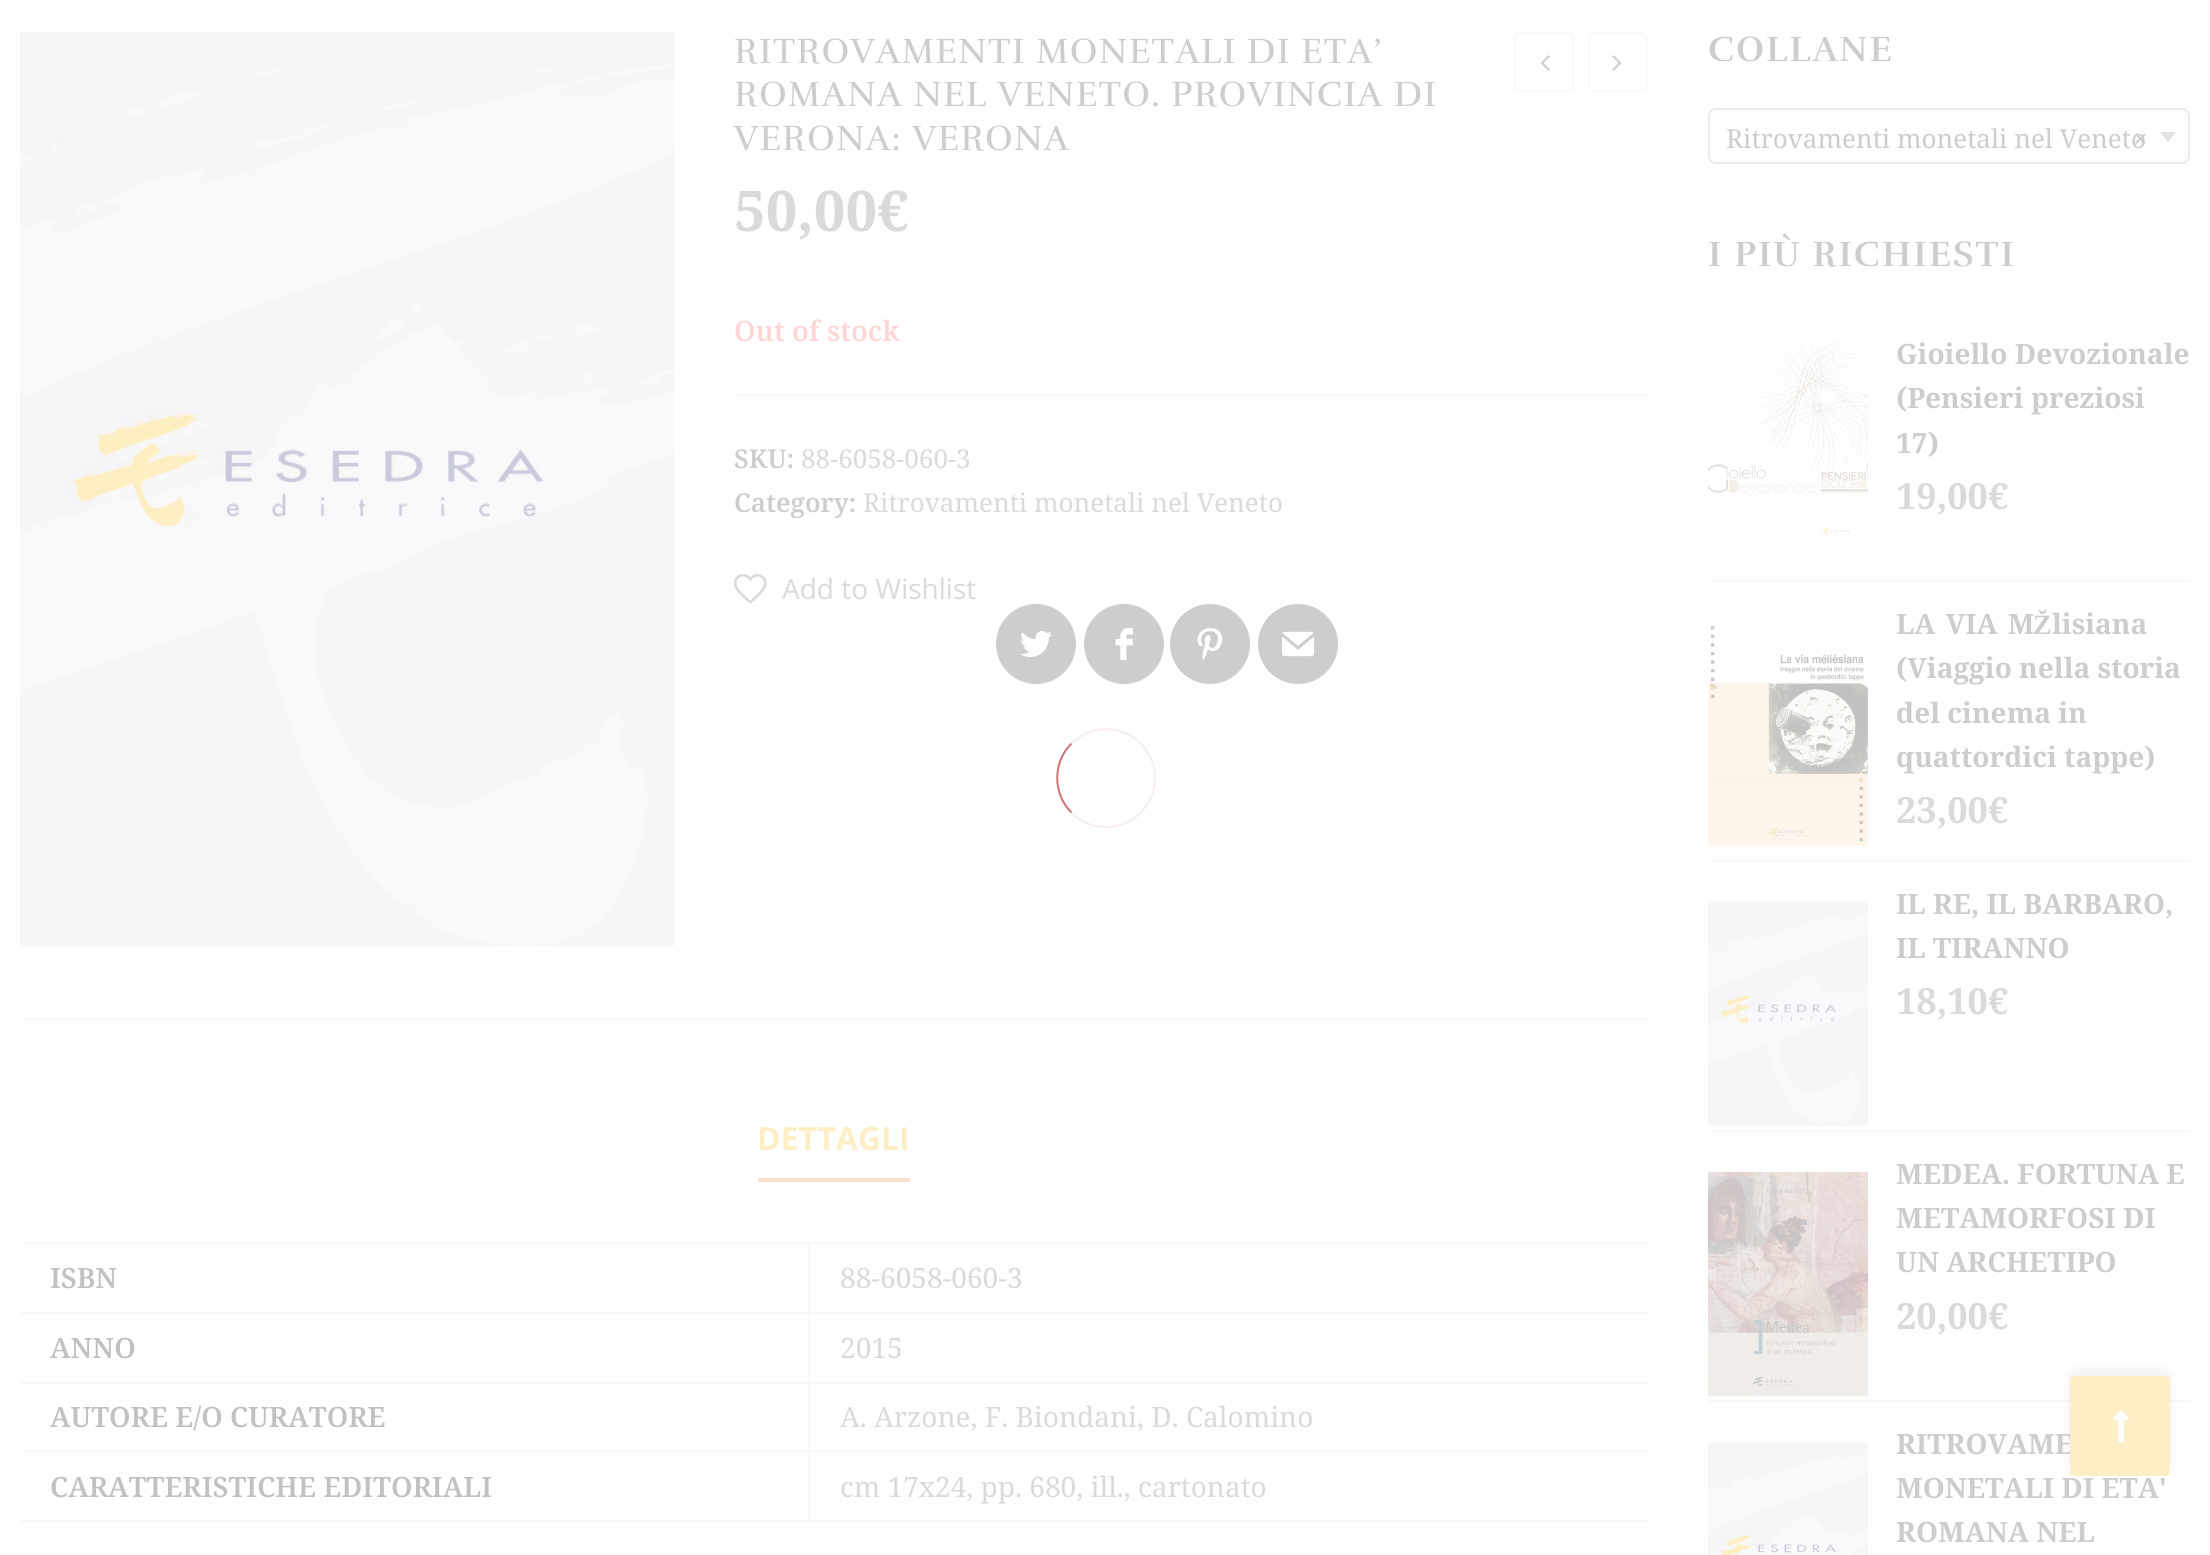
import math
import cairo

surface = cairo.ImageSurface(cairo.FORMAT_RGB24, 2210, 1555)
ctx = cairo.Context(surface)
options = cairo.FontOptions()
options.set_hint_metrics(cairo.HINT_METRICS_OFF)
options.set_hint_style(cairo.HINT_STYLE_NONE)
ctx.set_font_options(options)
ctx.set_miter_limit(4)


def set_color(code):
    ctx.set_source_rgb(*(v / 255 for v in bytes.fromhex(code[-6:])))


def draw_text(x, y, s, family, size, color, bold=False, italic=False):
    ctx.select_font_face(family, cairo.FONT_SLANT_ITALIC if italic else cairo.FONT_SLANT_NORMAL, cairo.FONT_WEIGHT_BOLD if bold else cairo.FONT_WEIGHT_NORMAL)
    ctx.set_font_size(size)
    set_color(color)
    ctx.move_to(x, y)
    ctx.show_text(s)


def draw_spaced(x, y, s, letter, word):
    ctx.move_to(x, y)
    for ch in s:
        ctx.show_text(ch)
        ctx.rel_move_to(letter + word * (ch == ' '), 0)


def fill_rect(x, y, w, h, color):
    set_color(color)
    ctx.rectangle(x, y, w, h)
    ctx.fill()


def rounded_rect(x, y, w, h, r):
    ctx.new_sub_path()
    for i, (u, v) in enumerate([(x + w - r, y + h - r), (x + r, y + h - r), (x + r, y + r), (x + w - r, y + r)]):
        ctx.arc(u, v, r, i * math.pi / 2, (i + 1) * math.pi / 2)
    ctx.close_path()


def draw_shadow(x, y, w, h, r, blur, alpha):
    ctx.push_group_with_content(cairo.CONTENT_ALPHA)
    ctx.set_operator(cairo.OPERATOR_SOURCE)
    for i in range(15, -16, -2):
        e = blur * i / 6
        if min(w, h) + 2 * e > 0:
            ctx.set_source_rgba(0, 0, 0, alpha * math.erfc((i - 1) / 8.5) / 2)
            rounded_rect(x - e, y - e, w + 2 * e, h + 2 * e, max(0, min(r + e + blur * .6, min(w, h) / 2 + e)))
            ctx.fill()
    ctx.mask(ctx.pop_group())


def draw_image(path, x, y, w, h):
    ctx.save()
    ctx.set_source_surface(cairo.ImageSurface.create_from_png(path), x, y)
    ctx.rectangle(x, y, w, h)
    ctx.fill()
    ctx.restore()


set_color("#fefefe")
ctx.paint()
draw_image("assets/img1.png", 20, 32, 654, 914)
ctx.select_font_face("Rufina")
ctx.set_font_size(36)
set_color("#cdcdcd")
draw_spaced(734, 63, "RITROVAMENTI MONETALI DI ETA’", 1.2, 0)
draw_spaced(734, 106, "ROMANA NEL VENETO. PROVINCIA DI", 1.2, 0)
draw_spaced(734, 150, "VERONA: VERONA", 1.2, 0)
draw_text(734, 231, "50,00€", "Noto Serif", 56, "#dadada", bold=True)
draw_text(734, 341, "Out of stock", "Noto Serif SemiBold", 28, "#fed5d5")
fill_rect(734, 394, 914, 2, "#f8f8f8")
draw_text(734, 468, "SKU:", "Noto Serif SemiBold", 26, "#cdcdcd")
draw_text(801, 468, "88-6058-060-3", "Noto Serif", 26, "#dadada")
draw_text(734, 512, "Category:", "Noto Serif SemiBold", 26, "#cdcdcd")
draw_text(863, 512, "Ritrovamenti monetali nel Veneto", "Noto Serif", 26, "#dadada")
draw_image("assets/img2.png", 734, 574, 33, 30)
draw_text(782, 599, "Add to Wishlist", "Open Sans", 28, "#dadada")
set_color("#cdcdcd")
ctx.new_path()
ctx.arc(1036, 644, 40, 0, 2 * math.pi)
ctx.fill()
draw_image("assets/img3.png", 1020, 631, 32, 26)
ctx.arc(1124, 644, 40, 0, 2 * math.pi)
ctx.fill()
draw_image("assets/img4.png", 1115, 628, 18, 32)
ctx.arc(1210, 644, 40, 0, 2 * math.pi)
ctx.fill()
draw_image("assets/img5.png", 1197, 628, 26, 32)
ctx.arc(1298, 644, 40, 0, 2 * math.pi)
ctx.fill()
draw_image("assets/img6.png", 1282, 631, 32, 26)
rounded_rect(1515, 33, 58, 58, 5)
set_color("#f9f9f9")
ctx.stroke()
draw_image("assets/img7.png", 1540, 55, 10, 16)
rounded_rect(1589, 33, 58, 58, 5)
ctx.stroke()
draw_image("assets/img8.png", 1612, 55, 10, 16)
fill_rect(20, 1018, 1628, 2, "#f8f8f8")
draw_text(757, 1150, "DETTAGLI", "Open Sans", 32, "#fdeec5", bold=True)
fill_rect(758, 1178, 152, 4, "#fbdfcb")
fill_rect(20, 1242, 1628, 2, "#f8f8f8")
fill_rect(808, 1520, 840, 2, "#f8f8f8")
fill_rect(808, 1450, 2, 72, "#f8f8f8")
fill_rect(808, 1450, 840, 2, "#f8f8f8")
fill_rect(808, 1382, 2, 70, "#f8f8f8")
fill_rect(808, 1382, 840, 2, "#f8f8f8")
fill_rect(808, 1312, 2, 72, "#f8f8f8")
fill_rect(808, 1312, 840, 2, "#f8f8f8")
fill_rect(808, 1242, 2, 72, "#f8f8f8")
fill_rect(20, 1312, 790, 2, "#f8f8f8")
draw_text(50, 1288, "ISBN", "Noto Serif SemiBold", 28, "#c1c1c1")
draw_text(840, 1288, "88-6058-060-3", "Noto Serif", 28, "#dadada")
fill_rect(20, 1382, 790, 2, "#f8f8f8")
draw_text(50, 1358, "ANNO", "Noto Serif SemiBold", 28, "#c1c1c1")
draw_text(840, 1358, "2015", "Noto Serif", 28, "#dadada")
fill_rect(20, 1450, 790, 2, "#f8f8f8")
draw_text(50, 1427, "AUTORE E/O CURATORE", "Noto Serif SemiBold", 28, "#c1c1c1")
draw_text(840, 1427, "A. Arzone, F. Biondani, D. Calomino", "Noto Serif", 28, "#dadada")
fill_rect(20, 1520, 790, 2, "#f8f8f8")
draw_text(50, 1497, "CARATTERISTICHE EDITORIALI", "Noto Serif SemiBold", 28, "#c1c1c1")
draw_text(840, 1497, "cm 17x24, pp. 680, ill., cartonato", "Noto Serif", 28, "#dadada")
ctx.select_font_face("Rufina", cairo.FONT_SLANT_NORMAL, cairo.FONT_WEIGHT_BOLD)
ctx.set_font_size(36)
set_color("#cdcdcd")
draw_spaced(1708, 61, "COLLANE", 2, 0)
rounded_rect(1709, 109, 480, 54, 7)
set_color("#eaeaea")
ctx.stroke()
draw_text(1726, 148, "Ritrovamenti monetali nel Veneto", "Noto Serif", 26, "#cdcdcd")
draw_text(2133, 148, "×", "Noto Serif", 26, "#cdcdcd", bold=True)
set_color("#e2e2e2")
ctx.new_path()
ctx.move_to(2160, 132)
ctx.line_to(2176, 132)
ctx.line_to(2168, 142)
ctx.close_path()
ctx.fill()
ctx.select_font_face("Rufina", cairo.FONT_SLANT_NORMAL, cairo.FONT_WEIGHT_BOLD)
ctx.set_font_size(36)
set_color("#cdcdcd")
draw_spaced(1708, 266, "I PIÙ RICHIESTI", 2, 0)
fill_rect(1708, 580, 482, 2, "#f8f8f8")
draw_image("assets/img9.png", 1708, 340, 160, 197)
draw_text(1896, 364, "Gioiello Devozionale", "Noto Serif", 28, "#cdcdcd", bold=True)
draw_text(1896, 408, "(Pensieri preziosi", "Noto Serif", 28, "#cdcdcd", bold=True)
draw_text(1896, 453, "17)", "Noto Serif", 28, "#cdcdcd", bold=True)
draw_text(1896, 509, "19,00€", "Noto Serif", 36, "#dadada", bold=True)
fill_rect(1708, 860, 482, 2, "#f8f8f8")
draw_image("assets/img10.png", 1708, 625, 160, 221)
ctx.set_font_size(28)
set_color("#cdcdcd")
draw_spaced(1896, 634, "LA VIA M", 0, 3)
draw_text(2033, 634, "Ž", "Liberation Serif", 28, "#cdcdcd", bold=True)
draw_text(2052, 634, "lisiana", "Noto Serif", 28, "#cdcdcd", bold=True)
draw_text(1896, 678, "(Viaggio nella storia", "Noto Serif", 28, "#cdcdcd", bold=True)
draw_text(1896, 723, "del cinema in", "Noto Serif", 28, "#cdcdcd", bold=True)
draw_text(1896, 767, "quattordici tappe)", "Noto Serif", 28, "#cdcdcd", bold=True)
draw_text(1896, 823, "23,00€", "Noto Serif", 36, "#dadada", bold=True)
fill_rect(1708, 1130, 482, 2, "#f8f8f8")
draw_image("assets/img11.png", 1708, 902, 160, 224)
draw_text(1896, 914, "IL RE, IL BARBARO,", "Noto Serif", 28, "#cdcdcd", bold=True)
draw_text(1896, 958, "IL TIRANNO", "Noto Serif", 28, "#cdcdcd", bold=True)
draw_text(1896, 1014, "18,10€", "Noto Serif", 36, "#dadada", bold=True)
fill_rect(1708, 1400, 482, 2, "#f8f8f8")
draw_image("assets/img12.png", 1708, 1172, 160, 224)
draw_text(1896, 1184, "MEDEA. FORTUNA E", "Noto Serif", 28, "#cdcdcd", bold=True)
draw_text(1896, 1228, "METAMORFOSI DI", "Noto Serif", 28, "#cdcdcd", bold=True)
draw_text(1896, 1272, "UN ARCHETIPO", "Noto Serif", 28, "#cdcdcd", bold=True)
draw_text(1896, 1329, "20,00€", "Noto Serif", 36, "#dadada", bold=True)
draw_image("assets/img13.png", 1708, 1442, 160, 113)
draw_text(1896, 1454, "RITROVAME", "Noto Serif", 28, "#cdcdcd", bold=True)
draw_text(1896, 1498, "MONETALI DI ETA'", "Noto Serif", 28, "#cdcdcd", bold=True)
draw_text(1896, 1542, "ROMANA NEL", "Noto Serif", 28, "#cdcdcd", bold=True)
ctx.new_path()
ctx.move_to(1071.5, 743.5)
ctx.curve_to(1083, 732, 1099.5, 727, 1115.5, 730)
ctx.curve_to(1125, 732, 1134, 736.5, 1140.5, 743.5)
ctx.curve_to(1171.5, 774, 1149.5, 827, 1106, 827)
ctx.curve_to(1093, 827, 1080.5, 822, 1071.5, 812.5)
set_color("#f8eded")
ctx.stroke()
ctx.new_path()
ctx.move_to(1071.5, 812.5)
ctx.curve_to(1052.5, 794, 1052.5, 762, 1071.5, 743.5)
set_color("#d07374")
ctx.stroke()
set_color("#c1c1c1")
draw_shadow(2070, 1370, 100, 100, 4, 4, 0.2)
set_color("#fdeec5")
rounded_rect(2070, 1376, 100, 100, 4)
ctx.fill()
draw_image("assets/img14.png", 2113, 1410, 16, 33)
surface.write_to_png("output.png")
